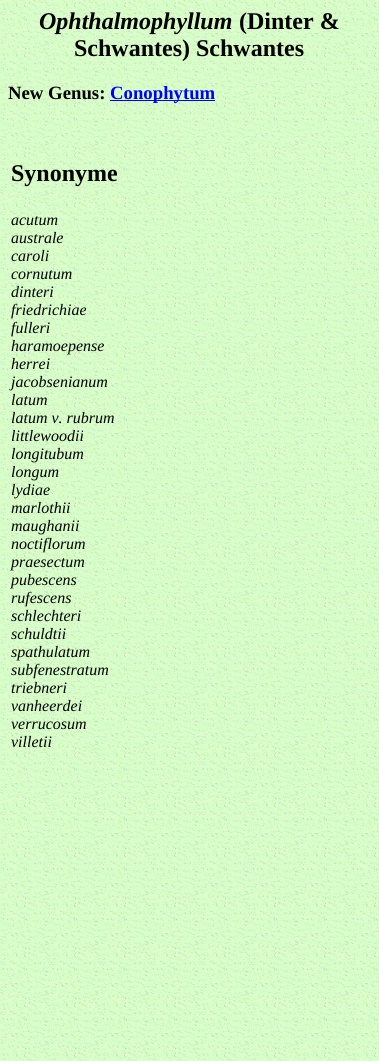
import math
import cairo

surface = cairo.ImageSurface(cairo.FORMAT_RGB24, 379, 1061)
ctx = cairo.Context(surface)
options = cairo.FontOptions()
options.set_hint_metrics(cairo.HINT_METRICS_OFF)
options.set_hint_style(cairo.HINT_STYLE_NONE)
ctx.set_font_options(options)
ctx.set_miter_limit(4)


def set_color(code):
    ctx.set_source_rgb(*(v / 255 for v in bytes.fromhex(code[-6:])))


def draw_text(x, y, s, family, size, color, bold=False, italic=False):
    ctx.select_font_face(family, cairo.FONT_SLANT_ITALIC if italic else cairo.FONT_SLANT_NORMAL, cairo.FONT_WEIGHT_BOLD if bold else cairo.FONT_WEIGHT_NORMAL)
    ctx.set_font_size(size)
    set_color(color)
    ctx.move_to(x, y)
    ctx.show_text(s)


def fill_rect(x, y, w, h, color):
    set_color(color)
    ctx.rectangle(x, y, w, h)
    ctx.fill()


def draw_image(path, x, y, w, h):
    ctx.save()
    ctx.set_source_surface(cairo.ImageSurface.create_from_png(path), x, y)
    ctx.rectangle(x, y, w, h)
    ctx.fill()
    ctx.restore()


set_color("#ffffff")
ctx.paint()
draw_image("assets/img1.png", 0, 0, 379, 1061)
draw_text(39, 29, "Ophthalmophyllum", "Liberation Serif", 24, "#000000", bold=True, italic=True)
draw_text(239, 29, "(Dinter &", "Liberation Serif", 24, "#000000", bold=True)
draw_text(74, 56, "Schwantes) Schwantes", "Liberation Serif", 24, "#000000", bold=True)
draw_text(8, 99, "New Genus:", "Liberation Serif", 18.75, "#000000", bold=True)
fill_rect(110, 100, 105, 1, "#0000ff")
draw_text(110, 99, "Conophytum", "Liberation Serif", 18.75, "#0000ff", bold=True)
draw_text(11, 181, "Synonyme", "Liberation Serif", 24, "#000000", bold=True)
draw_text(11, 225, "acutum", "Liberation Serif", 16, "#000000", italic=True)
draw_text(11, 243, "australe", "Liberation Serif", 16, "#000000", italic=True)
draw_text(11, 261, "caroli", "Liberation Serif", 16, "#000000", italic=True)
draw_text(11, 279, "cornutum", "Liberation Serif", 16, "#000000", italic=True)
draw_text(11, 297, "dinteri", "Liberation Serif", 16, "#000000", italic=True)
draw_text(11, 315, "friedrichiae", "Liberation Serif", 16, "#000000", italic=True)
draw_text(11, 333, "fulleri", "Liberation Serif", 16, "#000000", italic=True)
draw_text(11, 351, "haramoepense", "Liberation Serif", 16, "#000000", italic=True)
draw_text(11, 369, "herrei", "Liberation Serif", 16, "#000000", italic=True)
draw_text(11, 387, "jacobsenianum", "Liberation Serif", 16, "#000000", italic=True)
draw_text(11, 405, "latum", "Liberation Serif", 16, "#000000", italic=True)
draw_text(11, 423, "latum v. rubrum", "Liberation Serif", 16, "#000000", italic=True)
draw_text(11, 441, "littlewoodii", "Liberation Serif", 16, "#000000", italic=True)
draw_text(11, 459, "longitubum", "Liberation Serif", 16, "#000000", italic=True)
draw_text(11, 477, "longum", "Liberation Serif", 16, "#000000", italic=True)
draw_text(11, 495, "lydiae", "Liberation Serif", 16, "#000000", italic=True)
draw_text(11, 513, "marlothii", "Liberation Serif", 16, "#000000", italic=True)
draw_text(11, 531, "maughanii", "Liberation Serif", 16, "#000000", italic=True)
draw_text(11, 549, "noctiflorum", "Liberation Serif", 16, "#000000", italic=True)
draw_text(11, 567, "praesectum", "Liberation Serif", 16, "#000000", italic=True)
draw_text(11, 585, "pubescens", "Liberation Serif", 16, "#000000", italic=True)
draw_text(11, 603, "rufescens", "Liberation Serif", 16, "#000000", italic=True)
draw_text(11, 621, "schlechteri", "Liberation Serif", 16, "#000000", italic=True)
draw_text(11, 639, "schuldtii", "Liberation Serif", 16, "#000000", italic=True)
draw_text(11, 657, "spathulatum", "Liberation Serif", 16, "#000000", italic=True)
draw_text(11, 675, "subfenestratum", "Liberation Serif", 16, "#000000", italic=True)
draw_text(11, 693, "triebneri", "Liberation Serif", 16, "#000000", italic=True)
draw_text(11, 711, "vanheerdei", "Liberation Serif", 16, "#000000", italic=True)
draw_text(11, 729, "verrucosum", "Liberation Serif", 16, "#000000", italic=True)
draw_text(11, 747, "villetii", "Liberation Serif", 16, "#000000", italic=True)
surface.write_to_png("output.png")
